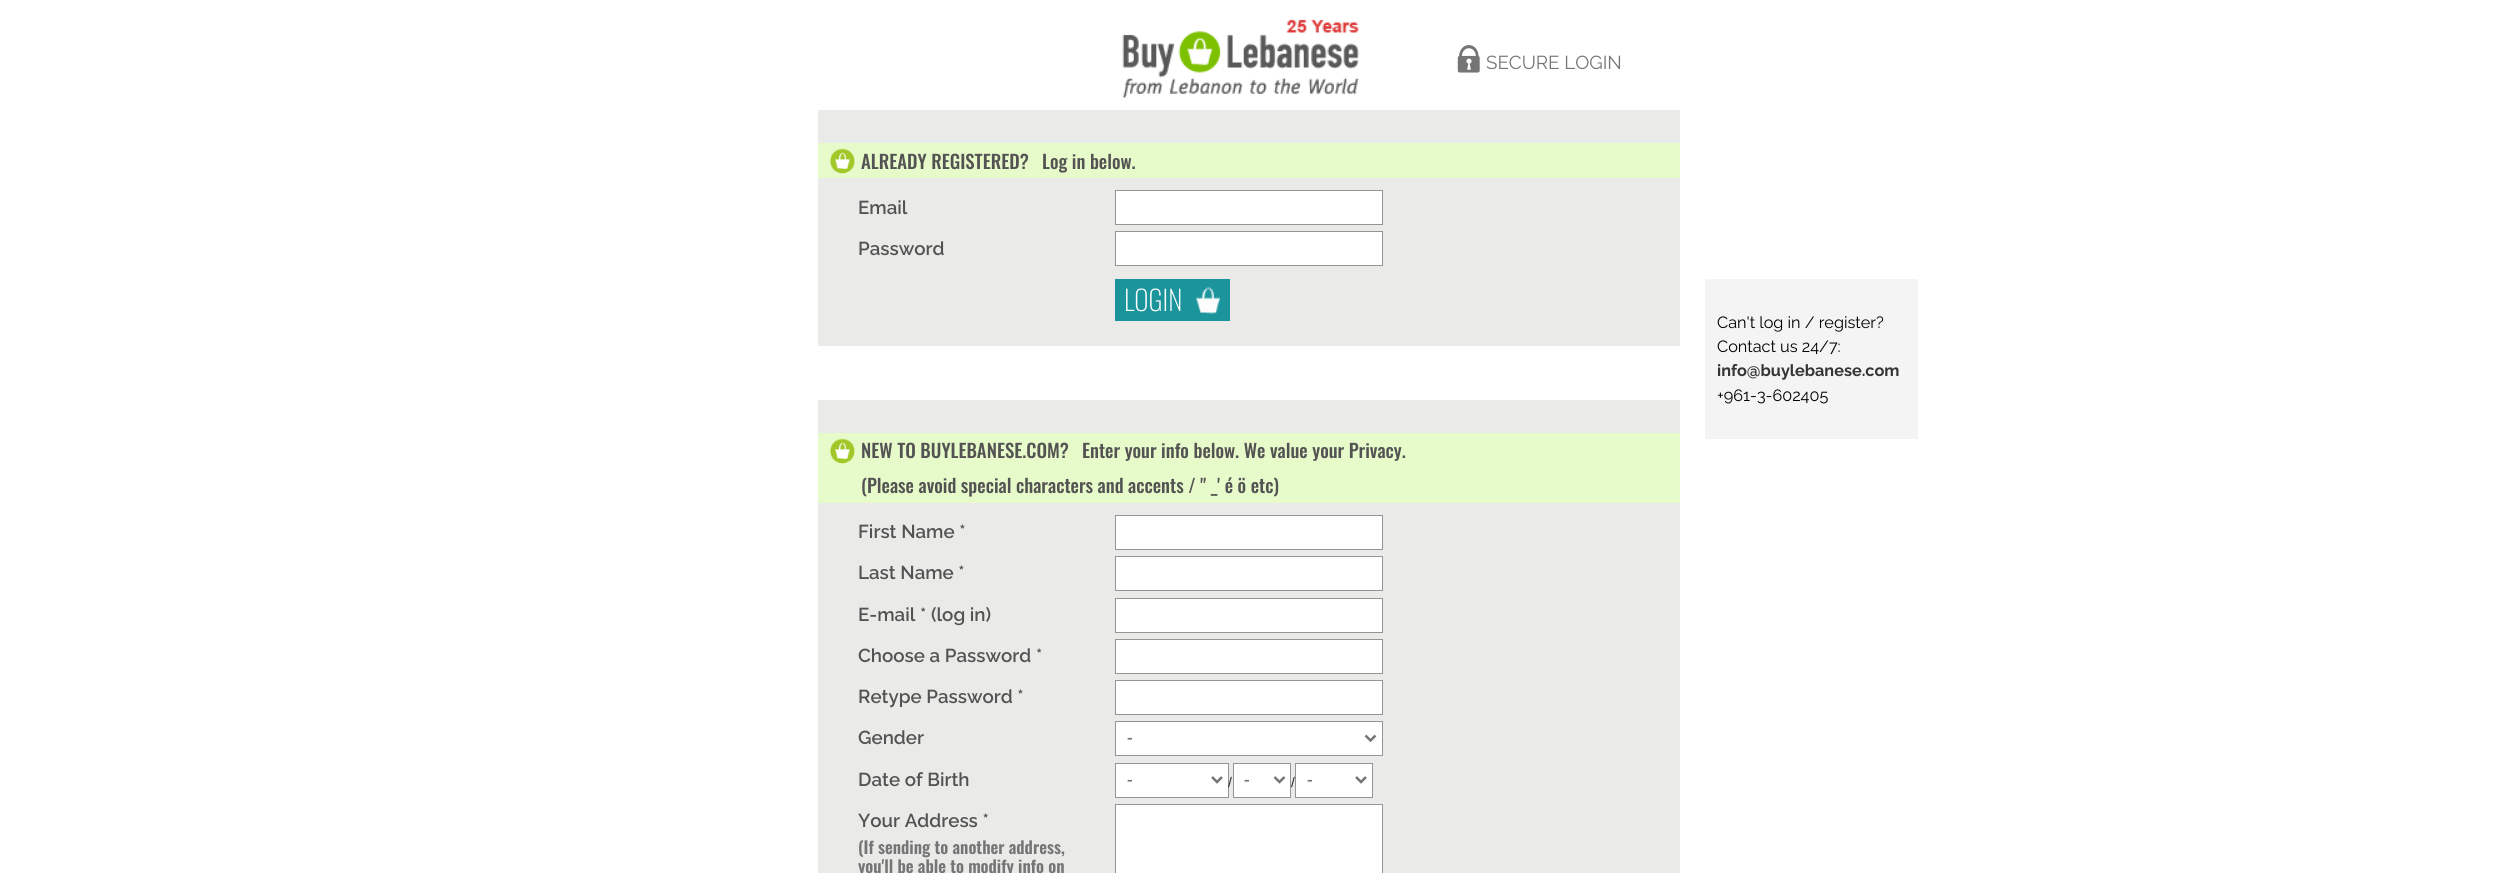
import math
import cairo

surface = cairo.ImageSurface(cairo.FORMAT_RGB24, 2496, 873)
ctx = cairo.Context(surface)
options = cairo.FontOptions()
options.set_hint_metrics(cairo.HINT_METRICS_OFF)
options.set_hint_style(cairo.HINT_STYLE_NONE)
ctx.set_font_options(options)
ctx.set_miter_limit(4)


def set_color(code):
    ctx.set_source_rgb(*(v / 255 for v in bytes.fromhex(code[-6:])))


def draw_text(x, y, s, family, size, color, bold=False, italic=False):
    ctx.select_font_face(family, cairo.FONT_SLANT_ITALIC if italic else cairo.FONT_SLANT_NORMAL, cairo.FONT_WEIGHT_BOLD if bold else cairo.FONT_WEIGHT_NORMAL)
    ctx.set_font_size(size)
    set_color(color)
    ctx.move_to(x, y)
    ctx.show_text(s)


def fill_rect(x, y, w, h, color):
    set_color(color)
    ctx.rectangle(x, y, w, h)
    ctx.fill()


def draw_image(path, x, y, w, h):
    ctx.save()
    ctx.set_source_surface(cairo.ImageSurface.create_from_png(path), x, y)
    ctx.rectangle(x, y, w, h)
    ctx.fill()
    ctx.restore()


set_color("#ffffff")
ctx.paint()
draw_image("assets/img1.png", 1122, 19, 237, 79)
draw_image("assets/img2.png", 1457, 45, 23, 28)
draw_text(1486, 69, "SECURE LOGIN", "Raleway", 18.75, "#757575")
fill_rect(818, 110, 862, 236, "#eaebe8")
fill_rect(818, 143, 862, 35, "#e7fbca")
draw_image("assets/img3.png", 830, 148, 25, 26)
draw_text(861, 169, "ALREADY REGISTERED?", "Oswald Medium", 18.75, "#545353")
draw_text(1042, 169, "Log in below.", "Oswald Medium", 18.75, "#545353")
draw_text(858, 214, "Email", "Raleway SemiBold", 18.75, "#545353")
set_color("#ffffff")
ctx.rectangle(1115.5, 190.5, 267, 34)
ctx.fill_preserve()
set_color("#949494")
ctx.set_line_width(1)
ctx.stroke()
draw_text(858, 255, "Password", "Raleway SemiBold", 18.75, "#545353")
set_color("#ffffff")
ctx.rectangle(1115.5, 231.5, 267, 34)
ctx.fill_preserve()
set_color("#949494")
ctx.stroke()
fill_rect(1115, 279, 115, 42, "#1c949c")
draw_image("assets/img4.png", 1196, 287, 24, 27)
draw_text(1124, 311, "LOGIN", "Oswald ExtraLight", 27.5, "#ffffff")
fill_rect(1705, 279, 213, 160, "#f4f4f4")
draw_text(1717, 328, "Can't log in / register?", "Raleway", 16.25, "#000000")
draw_text(1717, 352, "Contact us 24/7:", "Raleway", 16.25, "#000000")
draw_text(1717, 376, "info@buylebanese.com", "Raleway", 16.25, "#353535", bold=True)
draw_text(1717, 401, "+961-3-602405", "Raleway", 16.25, "#000000")
fill_rect(818, 400, 862, 473, "#eaebe8")
fill_rect(818, 433, 862, 70, "#e7fbca")
draw_image("assets/img3.png", 830, 438, 25, 26)
draw_text(861, 458, "NEW TO BUYLEBANESE.COM?", "Oswald Medium", 18.75, "#545353")
draw_text(1082, 458, "Enter your info below. We value your Privacy.", "Oswald Medium", 18.75, "#545353")
draw_text(861, 493, "(Please avoid special characters and accents / \" _' é ö etc)", "Oswald Medium", 18.75, "#545353")
draw_text(858, 538, "First Name *", "Raleway SemiBold", 18.75, "#545353")
set_color("#ffffff")
ctx.rectangle(1115.5, 515.5, 267, 34)
ctx.fill_preserve()
set_color("#949494")
ctx.stroke()
draw_text(858, 579, "Last Name *", "Raleway SemiBold", 18.75, "#545353")
set_color("#ffffff")
ctx.rectangle(1115.5, 556.5, 267, 34)
ctx.fill_preserve()
set_color("#949494")
ctx.stroke()
draw_text(858, 621, "E-mail * (log in)", "Raleway SemiBold", 18.75, "#545353")
set_color("#ffffff")
ctx.rectangle(1115.5, 598.5, 267, 34)
ctx.fill_preserve()
set_color("#949494")
ctx.stroke()
draw_text(858, 662, "Choose a Password *", "Raleway SemiBold", 18.75, "#545353")
set_color("#ffffff")
ctx.rectangle(1115.5, 639.5, 267, 34)
ctx.fill_preserve()
set_color("#949494")
ctx.stroke()
draw_text(858, 703, "Retype Password *", "Raleway SemiBold", 18.75, "#545353")
set_color("#ffffff")
ctx.rectangle(1115.5, 680.5, 267, 34)
ctx.fill_preserve()
set_color("#949494")
ctx.stroke()
draw_text(858, 744, "Gender", "Raleway SemiBold", 18.75, "#545353")
set_color("#ffffff")
ctx.rectangle(1115.5, 721.5, 267, 34)
ctx.fill_preserve()
set_color("#949494")
ctx.stroke()
ctx.new_path()
ctx.move_to(1365.5, 735.5)
ctx.line_to(1370.5, 740.5)
ctx.line_to(1375.5, 735.5)
set_color("#757575")
ctx.set_line_width(2.5)
ctx.stroke()
draw_text(1127, 744, "-", "Oswald Medium", 18, "#757575")
draw_text(858, 786, "Date of Birth", "Raleway SemiBold", 18.75, "#545353")
set_color("#ffffff")
ctx.rectangle(1115.5, 763.5, 113, 34)
ctx.fill_preserve()
set_color("#949494")
ctx.set_line_width(1)
ctx.stroke()
ctx.new_path()
ctx.move_to(1212, 777)
ctx.line_to(1217, 782)
ctx.line_to(1222, 777)
set_color("#757575")
ctx.set_line_width(2.5)
ctx.stroke()
draw_text(1127, 786, "-", "Oswald Medium", 18, "#757575")
draw_text(1228, 787, "/", "Liberation Sans", 14, "#212529")
set_color("#ffffff")
ctx.rectangle(1233.5, 763.5, 57, 34)
ctx.fill_preserve()
set_color("#949494")
ctx.set_line_width(1)
ctx.stroke()
ctx.new_path()
ctx.move_to(1274.5, 777)
ctx.line_to(1279.5, 782)
ctx.line_to(1284.5, 777)
set_color("#757575")
ctx.set_line_width(2.5)
ctx.stroke()
draw_text(1244, 786, "-", "Oswald Medium", 18, "#757575")
draw_text(1291, 787, "/", "Liberation Sans", 14, "#212529")
set_color("#ffffff")
ctx.rectangle(1295.5, 763.5, 77, 34)
ctx.fill_preserve()
set_color("#949494")
ctx.set_line_width(1)
ctx.stroke()
ctx.new_path()
ctx.move_to(1356, 777)
ctx.line_to(1361, 782)
ctx.line_to(1366, 777)
set_color("#757575")
ctx.set_line_width(2.5)
ctx.stroke()
draw_text(1307, 786, "-", "Oswald Medium", 18, "#757575")
draw_text(858, 827, "Your Address *", "Raleway SemiBold", 18.75, "#545353")
draw_text(858, 854, "(If sending to another address,", "Oswald SemiBold", 16.9, "#757575")
draw_text(858, 873, "you'll be able to modify info on", "Oswald SemiBold", 16.9, "#757575")
set_color("#ffffff")
ctx.rectangle(1115.5, 804.5, 267, 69)
ctx.fill_preserve()
set_color("#949494")
ctx.set_line_width(1)
ctx.stroke()
surface.write_to_png("output.png")
